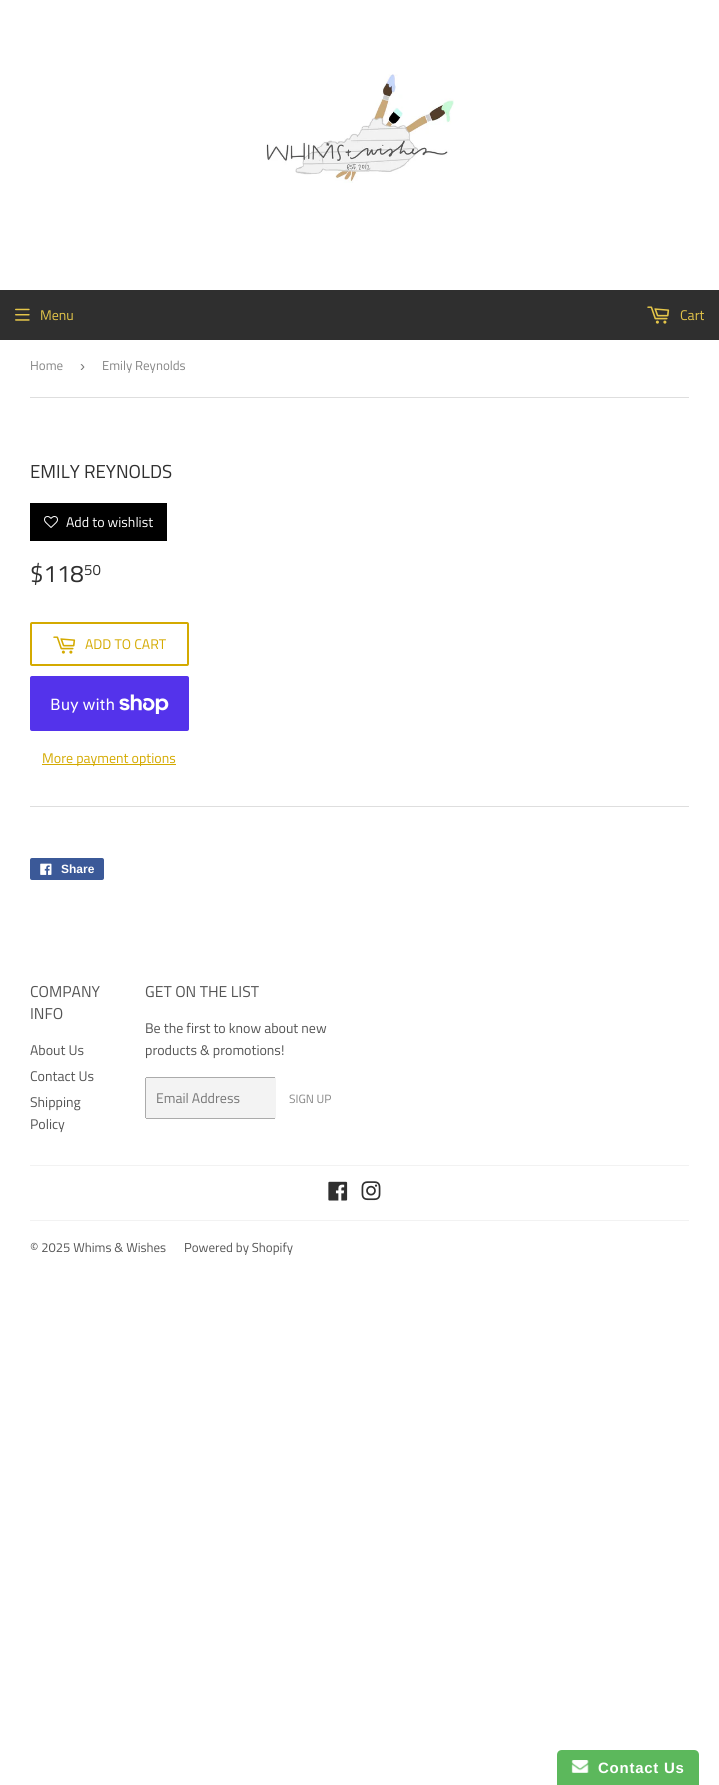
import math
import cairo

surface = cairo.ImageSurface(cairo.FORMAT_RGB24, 719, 1785)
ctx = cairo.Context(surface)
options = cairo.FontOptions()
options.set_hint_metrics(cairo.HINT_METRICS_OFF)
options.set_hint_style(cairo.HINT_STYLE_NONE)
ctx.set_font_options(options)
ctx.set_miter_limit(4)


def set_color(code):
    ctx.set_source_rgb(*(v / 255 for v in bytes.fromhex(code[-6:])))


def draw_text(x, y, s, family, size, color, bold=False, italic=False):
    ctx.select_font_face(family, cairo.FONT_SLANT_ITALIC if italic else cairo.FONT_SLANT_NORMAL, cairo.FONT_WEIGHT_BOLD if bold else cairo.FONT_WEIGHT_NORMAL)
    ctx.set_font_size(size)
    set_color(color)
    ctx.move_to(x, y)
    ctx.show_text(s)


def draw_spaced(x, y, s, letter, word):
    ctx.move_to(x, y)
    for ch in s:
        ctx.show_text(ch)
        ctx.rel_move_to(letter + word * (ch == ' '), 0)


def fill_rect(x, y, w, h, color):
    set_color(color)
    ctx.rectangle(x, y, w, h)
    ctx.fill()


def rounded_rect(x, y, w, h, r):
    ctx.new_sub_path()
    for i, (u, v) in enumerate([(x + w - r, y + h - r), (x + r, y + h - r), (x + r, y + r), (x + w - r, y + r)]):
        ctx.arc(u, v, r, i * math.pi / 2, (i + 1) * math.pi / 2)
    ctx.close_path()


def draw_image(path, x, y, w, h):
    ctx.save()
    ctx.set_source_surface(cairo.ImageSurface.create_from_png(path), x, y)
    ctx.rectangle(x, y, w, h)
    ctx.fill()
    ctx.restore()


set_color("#ffffff")
ctx.paint()
draw_image("assets/img1.png", 266, 74, 188, 109)
fill_rect(0, 290, 719, 50, "#2f2f2f")
draw_image("assets/img2.png", 15, 308, 15, 13)
draw_text(40, 320, "Menu", "Titillium Web", 14, "#e5c649")
draw_image("assets/img3.png", 647, 306, 23, 18)
draw_text(680, 320, "Cart", "Titillium Web", 14, "#e5c649")
fill_rect(30, 397, 659, 1, "#dedede")
draw_text(30, 370, "Home", "Titillium Web", 13, "#858585")
draw_text(80, 371, "›", "Liberation Sans", 15, "#767676")
draw_text(102, 370, "Emily Reynolds", "Titillium Web", 13, "#858585")
draw_text(30, 478, "EMILY REYNOLDS", "Titillium Web", 18.75, "#2f2f2f")
fill_rect(30, 503, 137, 38, "#000000")
draw_image("assets/img4.png", 44, 516, 14, 12)
draw_text(66, 527, "Add to wishlist", "Titillium Web", 14, "#ffffff")
draw_text(30, 582, "$118", "Titillium Web", 24, "#2f2f2f")
draw_text(84, 575, "50", "Titillium Web", 15, "#2f2f2f")
rounded_rect(31, 623, 157, 42, 1)
set_color("#d4aa00")
ctx.stroke()
draw_image("assets/img5.png", 53, 636, 23, 18)
draw_text(85, 649, "ADD TO CART", "Titillium Web", 14, "#d4aa00")
set_color("#5433eb")
rounded_rect(30, 676, 159, 55, 2)
ctx.fill()
draw_text(50, 710, "Buy with", "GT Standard", 16, "#ffffff")
draw_image("assets/img6.png", 119, 694, 50, 20)
fill_rect(42, 764, 134, 1, "#d4aa00")
draw_text(42, 763, "More payment options", "Titillium Web", 14, "#d4aa00")
fill_rect(30, 806, 659, 1, "#dedede")
set_color("#3b5998")
rounded_rect(30, 858, 74, 22, 2)
ctx.fill()
draw_image("assets/img7.png", 40, 863, 12, 12)
draw_text(61, 873, "Share", "Liberation Sans", 12, "#ffffff", bold=True)
draw_text(30, 997, "COMPANY", "Titillium Web", 15.75, "#545454")
draw_text(30, 1019, "INFO", "Titillium Web", 15.75, "#545454")
draw_text(30, 1055, "About Us", "Titillium Web", 14, "#545454")
draw_text(30, 1081, "Contact Us", "Titillium Web", 14, "#545454")
draw_text(30, 1107, "Shipping", "Titillium Web", 14, "#545454")
draw_text(30, 1129, "Policy", "Titillium Web", 14, "#545454")
draw_text(145, 997, "GET ON THE LIST", "Titillium Web", 15.75, "#545454")
draw_text(145, 1033, "Be the first to know about new", "Titillium Web", 14, "#545454")
draw_text(145, 1055, "products & promotions!", "Titillium Web", 14, "#545454")
set_color("#f3f3f3")
rounded_rect(145, 1077, 131, 42, 2)
ctx.fill()
fill_rect(146, 1077, 129, 1, "#ababab")
fill_rect(146, 1118, 129, 1, "#ababab")
fill_rect(145, 1078, 1, 40, "#ababab")
draw_text(156, 1103, "Email Address", "Titillium Web", 14, "#767676")
draw_text(289, 1103, "SIGN UP", "Titillium Web", 12, "#858585")
fill_rect(30, 1165, 659, 1, "#f2f2f2")
draw_image("assets/img8.png", 328, 1181, 20, 20)
draw_image("assets/img9.png", 361, 1181, 20, 20)
fill_rect(30, 1220, 659, 1, "#f2f2f2")
draw_text(30, 1252, "© 2025 Whims & Wishes", "Titillium Web", 13, "#545454")
draw_text(184, 1252, "Powered by Shopify", "Titillium Web", 13, "#545454")
set_color("#5cb85c")
ctx.new_path()
ctx.move_to(562, 1750)
ctx.line_to(694, 1750)
ctx.curve_to(697, 1750, 699, 1752, 699, 1755)
ctx.line_to(699, 1785)
ctx.line_to(557, 1785)
ctx.line_to(557, 1755)
ctx.curve_to(557, 1752, 559, 1750, 562, 1750)
ctx.close_path()
ctx.fill()
draw_image("assets/img10.png", 571, 1760, 18, 13)
ctx.select_font_face("Liberation Sans", cairo.FONT_SLANT_NORMAL, cairo.FONT_WEIGHT_BOLD)
ctx.set_font_size(15)
set_color("#ffffff")
draw_spaced(598, 1773, "Contact Us", 0.75, 0)
surface.write_to_png("output.png")
